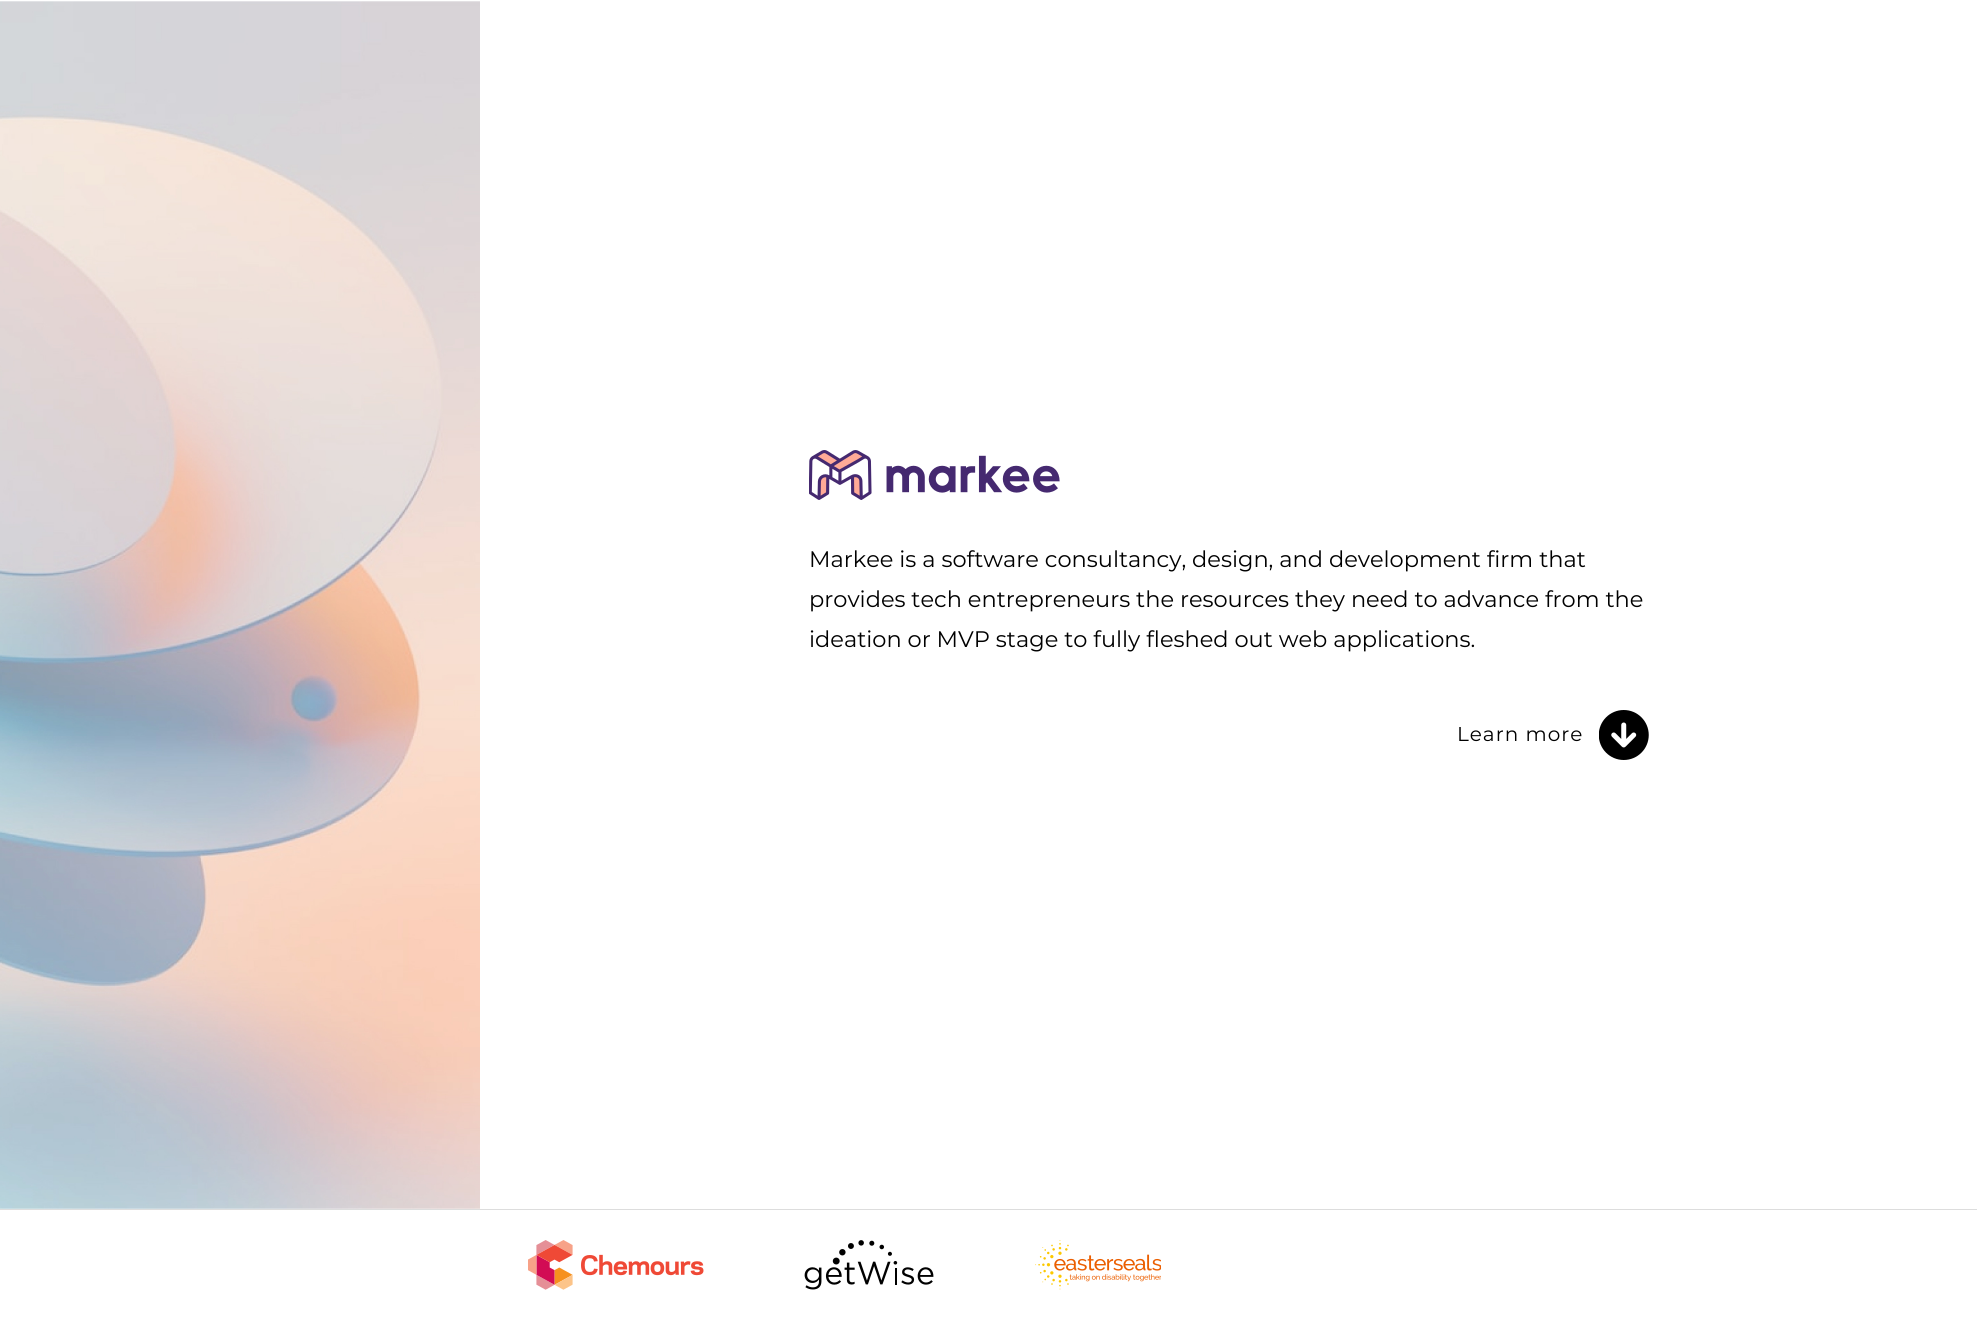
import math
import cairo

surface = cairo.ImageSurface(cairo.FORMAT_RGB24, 1977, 1320)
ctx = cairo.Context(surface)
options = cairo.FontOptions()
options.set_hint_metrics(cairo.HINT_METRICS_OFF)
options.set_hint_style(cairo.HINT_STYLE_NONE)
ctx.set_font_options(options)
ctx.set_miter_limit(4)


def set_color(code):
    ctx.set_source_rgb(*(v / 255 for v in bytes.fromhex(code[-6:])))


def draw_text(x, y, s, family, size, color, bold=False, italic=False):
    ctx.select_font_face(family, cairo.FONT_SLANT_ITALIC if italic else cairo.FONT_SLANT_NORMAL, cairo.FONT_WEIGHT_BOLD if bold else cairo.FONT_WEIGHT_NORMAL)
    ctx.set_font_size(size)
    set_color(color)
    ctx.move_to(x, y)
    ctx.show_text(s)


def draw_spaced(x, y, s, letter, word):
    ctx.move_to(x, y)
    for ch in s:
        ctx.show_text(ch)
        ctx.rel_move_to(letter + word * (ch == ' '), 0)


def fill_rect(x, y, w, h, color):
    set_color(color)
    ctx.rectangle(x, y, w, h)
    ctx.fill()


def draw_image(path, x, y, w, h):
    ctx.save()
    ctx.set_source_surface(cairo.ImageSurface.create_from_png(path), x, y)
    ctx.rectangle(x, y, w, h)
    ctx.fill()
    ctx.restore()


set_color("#ffffff")
ctx.paint()
draw_image("assets/img1.png", 0, 1, 480, 1208)
draw_image("assets/img2.png", 809, 450, 251, 50)
draw_text(809, 567, "Markee is a software consultancy, design, and development firm that", "Montserrat", 22.5, "#000000")
draw_text(809, 607, "provides tech entrepreneurs the resources they need to advance from the", "Montserrat", 22.5, "#000000")
draw_text(809, 647, "ideation or MVP stage to fully fleshed out web applications.", "Montserrat", 22.5, "#000000")
ctx.set_font_size(20)
draw_spaced(1457, 741, "Learn more", 1, 0)
draw_image("assets/img3.png", 1599, 710, 50, 50)
fill_rect(0, 1209, 1977, 1, "#dddddd")
draw_image("assets/img4.png", 528, 1240, 176, 50)
draw_image("assets/img5.png", 804, 1240, 130, 50)
draw_image("assets/img6.png", 1035, 1240, 126, 50)
surface.write_to_png("output.png")
